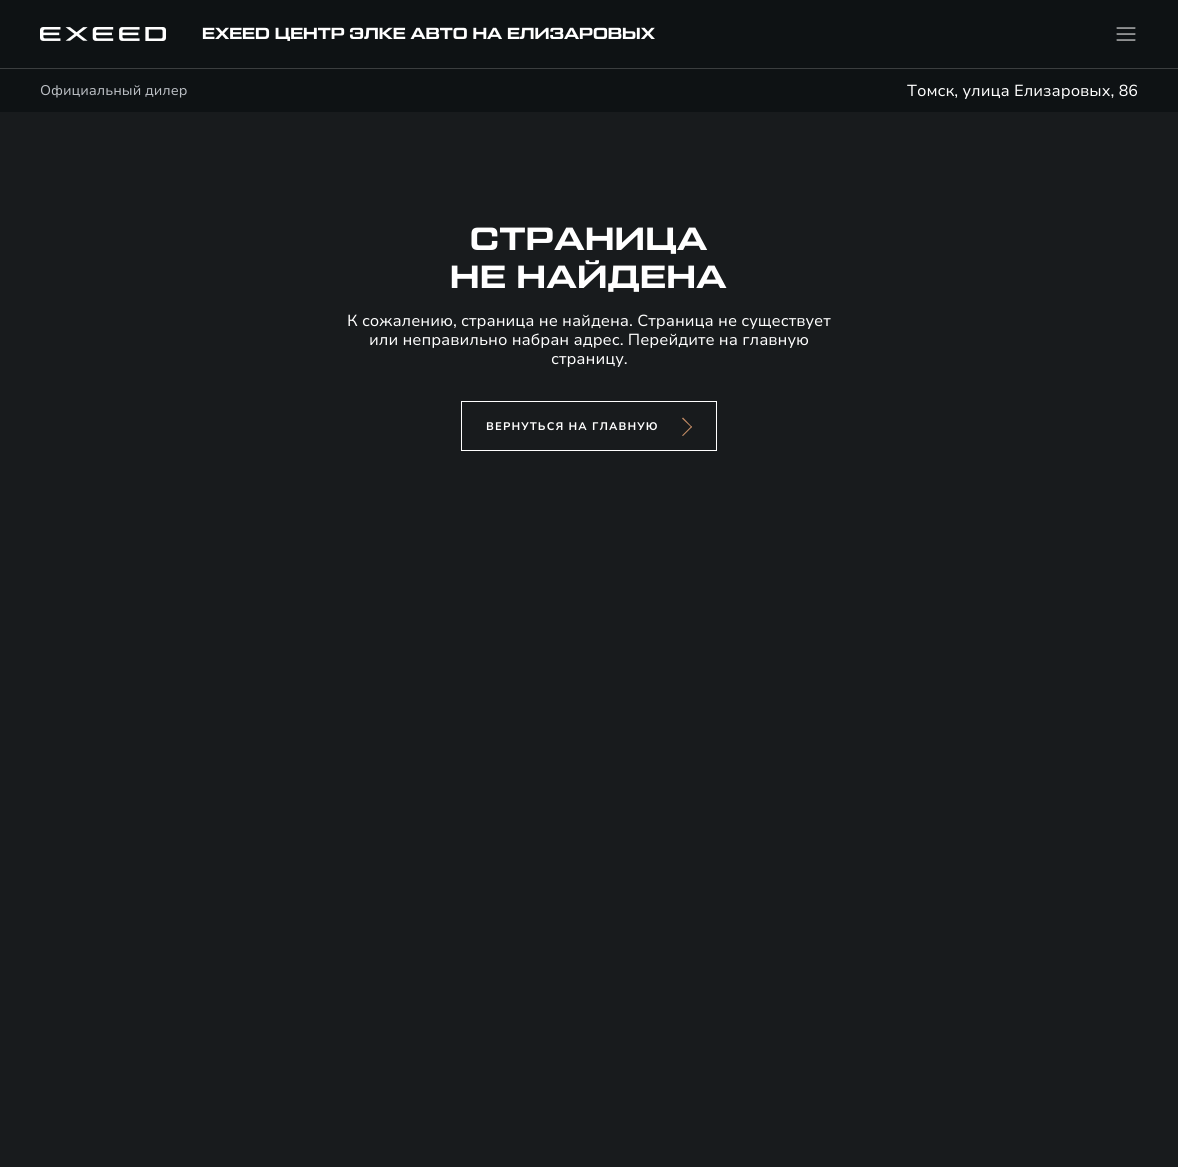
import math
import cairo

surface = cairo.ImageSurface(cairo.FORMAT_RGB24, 1178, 1167)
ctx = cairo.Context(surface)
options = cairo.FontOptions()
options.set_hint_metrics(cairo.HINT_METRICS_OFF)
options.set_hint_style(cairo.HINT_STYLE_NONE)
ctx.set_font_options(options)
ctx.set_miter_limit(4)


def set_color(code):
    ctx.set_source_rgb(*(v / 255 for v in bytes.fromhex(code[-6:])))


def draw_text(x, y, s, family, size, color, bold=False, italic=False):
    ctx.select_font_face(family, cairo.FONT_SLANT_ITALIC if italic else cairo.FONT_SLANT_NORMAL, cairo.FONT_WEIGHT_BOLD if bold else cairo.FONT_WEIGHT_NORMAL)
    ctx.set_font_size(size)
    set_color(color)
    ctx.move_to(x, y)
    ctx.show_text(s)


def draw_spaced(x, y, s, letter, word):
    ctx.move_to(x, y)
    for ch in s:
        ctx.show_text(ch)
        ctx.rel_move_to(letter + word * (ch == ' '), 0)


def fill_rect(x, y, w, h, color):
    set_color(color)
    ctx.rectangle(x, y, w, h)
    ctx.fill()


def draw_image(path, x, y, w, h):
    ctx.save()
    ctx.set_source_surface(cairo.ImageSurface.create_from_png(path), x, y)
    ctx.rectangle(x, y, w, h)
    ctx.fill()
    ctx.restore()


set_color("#181b1d")
ctx.paint()
fill_rect(0, 0, 1178, 68, "#0e1214")
draw_image("assets/img1.png", 40, 27, 126, 14)
draw_text(202, 39, "EXEED ЦЕНТР ЭЛКЕ АВТО НА ЕЛИЗАРОВЫХ", "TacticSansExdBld", 16, "#ffffff")
fill_rect(0, 69, 1178, 43, "#0e1214")
fill_rect(0, 68, 1178, 1, "#3b3e3f")
draw_text(40, 95, "Официальный дилер", "Nunito Sans", 14, "#bbbfc4")
draw_text(907, 96, "Томск, улица Елизаровых, 86", "Nunito Sans", 16, "#ffffff")
ctx.new_path()
ctx.move_to(1117, 34)
ctx.line_to(1135, 34)
ctx.move_to(1117, 28)
ctx.line_to(1135, 28)
ctx.move_to(1117, 40)
ctx.line_to(1135, 40)
ctx.set_line_width(1)
ctx.set_line_cap(cairo.LINE_CAP_ROUND)
ctx.set_line_join(cairo.LINE_JOIN_ROUND)
ctx.stroke()
ctx.select_font_face("TacticSansExdBld")
ctx.set_font_size(32)
draw_spaced(470, 250, "СТРАНИЦА", 0.6, 0)
draw_spaced(450, 288, "НЕ НАЙДЕНА", 0.6, 0)
draw_text(347, 326, "К сожалению, страница не найдена. Страница не существует", "Nunito Sans", 16, "#ffffff")
draw_text(369, 345, "или неправильно набран адрес. Перейдите на главную", "Nunito Sans", 16, "#ffffff")
draw_text(551, 364, "страницу.", "Nunito Sans", 16, "#ffffff")
ctx.rectangle(461.5, 401.5, 255, 49)
ctx.set_line_cap(cairo.LINE_CAP_BUTT)
ctx.set_line_join(cairo.LINE_JOIN_MITER)
ctx.stroke()
ctx.select_font_face("Nunito Sans", cairo.FONT_SLANT_NORMAL, cairo.FONT_WEIGHT_BOLD)
ctx.set_font_size(11)
draw_spaced(486, 430, "ВЕРНУТЬСЯ НА ГЛАВНУЮ", 1.1, 0)
set_color("#c78e66")
ctx.new_path()
ctx.move_to(682, 418.5)
ctx.line_to(683, 417.5)
ctx.line_to(692, 427)
ctx.line_to(691.5, 427.5)
ctx.close_path()
ctx.fill()
ctx.new_path()
ctx.move_to(682, 435.5)
ctx.line_to(691.5, 426)
ctx.line_to(692, 427)
ctx.line_to(683, 436)
ctx.close_path()
ctx.fill()
surface.write_to_png("output.png")
